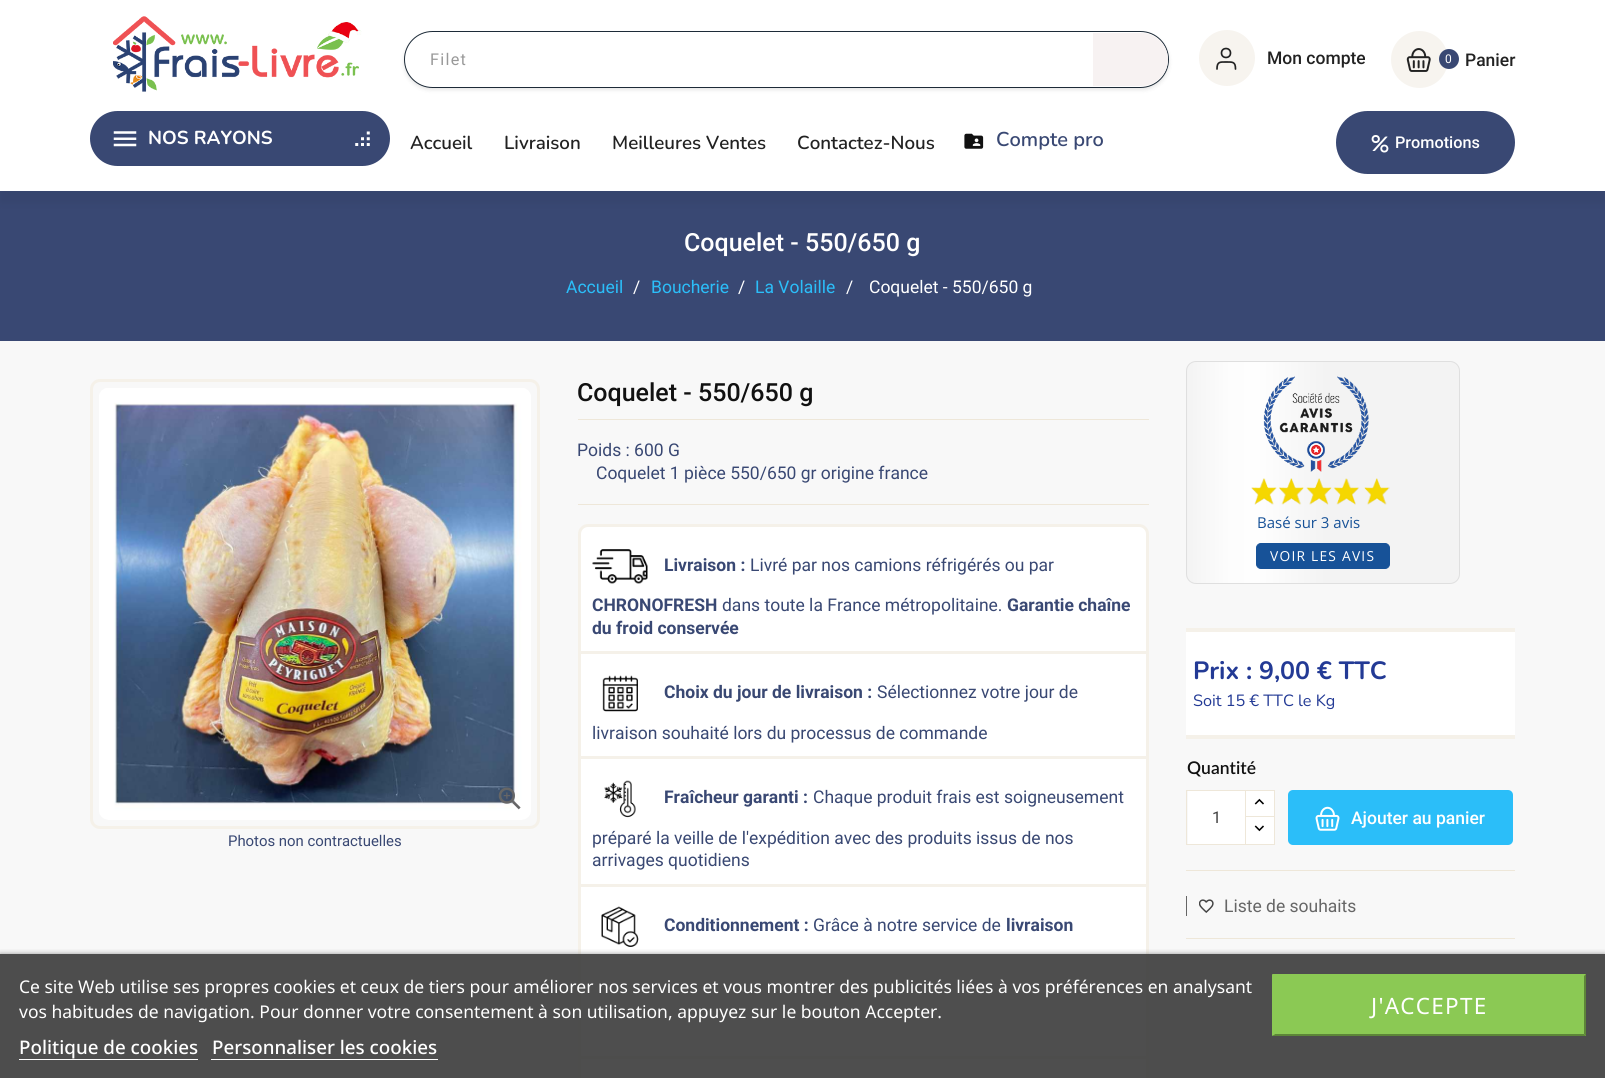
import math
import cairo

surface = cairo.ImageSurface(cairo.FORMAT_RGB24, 1605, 1078)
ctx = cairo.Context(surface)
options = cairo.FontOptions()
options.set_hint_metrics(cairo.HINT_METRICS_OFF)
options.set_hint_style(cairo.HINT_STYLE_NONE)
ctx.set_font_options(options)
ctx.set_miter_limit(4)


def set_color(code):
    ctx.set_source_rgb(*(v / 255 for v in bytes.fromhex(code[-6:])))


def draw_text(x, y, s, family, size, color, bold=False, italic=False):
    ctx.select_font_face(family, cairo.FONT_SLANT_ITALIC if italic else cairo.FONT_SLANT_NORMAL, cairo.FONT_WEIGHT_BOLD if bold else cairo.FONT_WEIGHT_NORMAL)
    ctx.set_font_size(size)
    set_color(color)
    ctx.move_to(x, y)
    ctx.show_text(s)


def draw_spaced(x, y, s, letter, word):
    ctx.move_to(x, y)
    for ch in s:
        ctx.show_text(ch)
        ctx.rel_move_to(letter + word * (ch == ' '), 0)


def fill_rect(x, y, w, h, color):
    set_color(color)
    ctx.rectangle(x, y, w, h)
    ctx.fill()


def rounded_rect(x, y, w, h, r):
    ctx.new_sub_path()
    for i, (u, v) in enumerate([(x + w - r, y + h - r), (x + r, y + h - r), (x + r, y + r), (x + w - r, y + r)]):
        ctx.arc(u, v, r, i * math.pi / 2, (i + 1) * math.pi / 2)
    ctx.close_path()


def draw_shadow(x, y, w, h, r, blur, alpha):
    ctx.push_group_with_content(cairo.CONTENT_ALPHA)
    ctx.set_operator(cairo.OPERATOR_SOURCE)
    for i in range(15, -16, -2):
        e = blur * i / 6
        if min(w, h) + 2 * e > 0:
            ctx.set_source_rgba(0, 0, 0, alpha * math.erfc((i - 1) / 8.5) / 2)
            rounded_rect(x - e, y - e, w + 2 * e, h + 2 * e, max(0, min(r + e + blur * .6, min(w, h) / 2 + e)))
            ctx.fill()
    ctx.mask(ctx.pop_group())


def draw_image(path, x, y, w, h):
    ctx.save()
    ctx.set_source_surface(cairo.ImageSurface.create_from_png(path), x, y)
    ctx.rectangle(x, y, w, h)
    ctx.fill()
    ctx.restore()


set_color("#f8f8f8")
ctx.paint()
fill_rect(0, 0, 1605, 111, "#ffffff")
draw_image("assets/img1.png", 113, 16, 249, 76)
set_color("#000000")
draw_shadow(404, 34, 765, 56, 28, 2, 0.1)
set_color("#ffffff")
rounded_rect(404.5, 31.5, 764, 56, 28)
ctx.fill_preserve()
set_color("#1d2b38")
ctx.set_line_width(1)
ctx.stroke()
ctx.select_font_face("Roboto")
ctx.set_font_size(16.25)
set_color("#999999")
draw_spaced(430, 65, "Filet", 1.25, 0)
set_color("#f7f2f2")
ctx.new_path()
ctx.move_to(1093, 33)
ctx.line_to(1141.5, 33)
ctx.curve_to(1156, 33, 1168, 45, 1168, 59.5)
ctx.curve_to(1168, 74, 1156, 86, 1141.5, 86)
ctx.line_to(1093, 86)
ctx.close_path()
ctx.fill()
set_color("#f7f4ef")
ctx.arc(1227, 58, 28, 0, 2 * math.pi)
ctx.fill()
ctx.new_path()
ctx.move_to(1235.5, 69)
ctx.curve_to(1235.5, 61.5, 1232.5, 62, 1226, 62)
ctx.curve_to(1220, 62, 1217, 61.5, 1217, 69)
set_color("#222222")
ctx.set_line_width(1.7)
ctx.set_line_cap(cairo.LINE_CAP_ROUND)
ctx.set_line_join(cairo.LINE_JOIN_ROUND)
ctx.stroke()
ctx.arc(1226, 53, 4.5, 0, 2 * math.pi)
ctx.set_line_cap(cairo.LINE_CAP_BUTT)
ctx.set_line_join(cairo.LINE_JOIN_MITER)
ctx.stroke()
draw_text(1267, 64, "Mon compte", "Roboto Medium", 17.5, "#222222")
set_color("#f7f4ef")
ctx.new_path()
ctx.arc(1419.5, 59.5, 28.5, 0, 2 * math.pi)
ctx.fill()
draw_image("assets/img2.png", 1406, 48, 25, 24)
set_color("#394873")
ctx.arc(1449, 59, 10, 0, 2 * math.pi)
ctx.fill()
draw_text(1445, 63, "0", "Roboto", 12, "#ffffff")
draw_text(1465, 66, "Panier", "Roboto Medium", 17.5, "#222222")
fill_rect(0, 191, 1605, 150, "#394873")
set_color("#000000")
draw_shadow(0, 123, 1605, 80, 0, 5, 0.05)
fill_rect(0, 111, 1605, 80, "#ffffff")
set_color("#394873")
rounded_rect(90, 111, 300, 55, 27.5)
ctx.fill()
draw_image("assets/img3.png", 113, 131, 24, 16)
draw_text(148, 144, "NOS RAYONS", "Nunito", 18.75, "#ffffff", bold=True)
draw_image("assets/img4.png", 355, 131, 15, 15)
draw_text(410, 149, "Accueil", "Nunito SemiBold", 18.75, "#222222")
draw_text(504, 149, "Livraison", "Nunito SemiBold", 18.75, "#222222")
draw_text(612, 149, "Meilleures Ventes", "Nunito SemiBold", 18.75, "#222222")
draw_text(797, 149, "Contactez-Nous", "Nunito SemiBold", 18.75, "#222222")
draw_image("assets/img5.png", 964, 133, 20, 16)
draw_text(996, 146, "Compte pro", "Nunito SemiBold", 20, "#394873")
rounded_rect(1336, 111, 179, 63, 31.5)
ctx.fill()
draw_image("assets/img6.png", 1371, 135, 18, 18)
draw_text(1395, 148, "Promotions", "Roboto Medium", 16.25, "#ffffff")
draw_text(684, 251, "Coquelet - 550/650 g", "Roboto Medium", 25, "#ffffff")
draw_text(566, 293, "Accueil", "Roboto", 17.5, "#2bbef9")
draw_text(633, 293, "/", "Roboto", 17.5, "#ffffff")
draw_text(651, 293, "Boucherie", "Roboto", 17.5, "#2bbef9")
draw_text(738, 293, "/", "Roboto", 17.5, "#ffffff")
draw_text(755, 293, "La Volaille", "Roboto", 17.5, "#2bbef9")
draw_text(846, 293, "/", "Roboto", 17.5, "#ffffff")
draw_text(869, 293, "Coquelet - 550/650 g", "Roboto", 17.5, "#ffffff")
rounded_rect(91.5, 380.5, 447, 447, 8.5)
set_color("#f5f1e9")
ctx.set_line_width(3)
ctx.stroke()
draw_image("assets/img7.png", 99, 388, 432, 432)
draw_image("assets/img8.png", 498, 787, 23, 23)
draw_text(228, 846, "Photos non contractuelles", "Roboto", 14.9, "#394873")
fill_rect(578, 419, 571, 1, "#eee7d9")
draw_text(577, 401, "Coquelet - 550/650 g", "Roboto Medium", 25, "#111111")
draw_text(577, 456, "Poids : 600 G", "Roboto", 17.5, "#394873")
fill_rect(578, 504, 571, 1, "#eee7d9")
draw_text(596, 479, "Coquelet 1 pièce 550/650 gr origine france", "Roboto", 17.5, "#394873")
set_color("#ffffff")
rounded_rect(579.5, 525.5, 568, 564, 8.5)
ctx.fill_preserve()
set_color("#f5f1e9")
ctx.stroke()
fill_rect(580, 651, 566, 3, "#f5f1e9")
draw_image("assets/img9.png", 592, 549, 56, 35)
draw_text(664, 571, "Livraison :", "Roboto", 17.5, "#394873", bold=True)
draw_text(750, 571, "Livré par nos camions réfrigérés ou par", "Roboto", 17.5, "#394873")
draw_text(592, 611, "CHRONOFRESH", "Roboto", 17.5, "#394873", bold=True)
draw_text(722, 611, "dans toute la France métropolitaine.", "Roboto", 17.5, "#394873")
draw_text(1007, 611, "Garantie chaîne", "Roboto", 17.5, "#394873", bold=True)
draw_text(592, 634, "du froid conservée", "Roboto", 17.5, "#394873", bold=True)
fill_rect(580, 756, 566, 3, "#f5f1e9")
draw_image("assets/img10.png", 602, 675, 36, 37)
draw_text(664, 698, "Choix du jour de livraison :", "Roboto", 17.5, "#394873", bold=True)
draw_text(877, 698, "Sélectionnez votre jour de", "Roboto", 17.5, "#394873")
draw_text(592, 739, "livraison souhaité lors du processus de commande", "Roboto", 17.5, "#394873")
fill_rect(580, 884, 566, 3, "#f5f1e9")
draw_image("assets/img11.png", 604, 780, 32, 38)
draw_text(664, 803, "Fraîcheur garanti :", "Roboto", 17.5, "#394873", bold=True)
draw_text(813, 803, "Chaque produit frais est soigneusement", "Roboto", 17.5, "#394873")
draw_text(592, 844, "préparé la veille de l'expédition avec des produits issus de nos", "Roboto", 17.5, "#394873")
draw_text(592, 866, "arrivages quotidiens", "Roboto", 17.5, "#394873")
fill_rect(580, 1056, 566, 3, "#f5f1e9")
draw_image("assets/img12.png", 601, 906, 38, 41)
draw_text(664, 931, "Conditionnement :", "Roboto", 17.5, "#394873", bold=True)
draw_text(813, 931, "Grâce à notre service de", "Roboto", 17.5, "#394873")
draw_text(1006, 931, "livraison", "Roboto", 17.5, "#394873", bold=True)
gradient = cairo.LinearGradient(1186, 473, 1460, 473)
gradient.add_color_stop_rgba(0, 0.953, 0.953, 0.953, 1)
gradient.add_color_stop_rgba(0.16, 0.992, 0.992, 0.992, 1)
gradient.add_color_stop_rgba(0.26, 0.996, 0.996, 0.996, 1)
gradient.add_color_stop_rgba(0.51, 0.953, 0.953, 0.953, 1)
ctx.set_source(gradient)
rounded_rect(1186.5, 361.5, 273, 222, 9.5)
ctx.fill_preserve()
set_color("#dfdfdf")
ctx.set_line_width(1)
ctx.stroke()
draw_image("assets/img13.png", 1263, 376, 106, 96)
draw_image("assets/img14.png", 1251, 478, 139, 27)
draw_image("assets/img15.png", 1251, 478, 139, 27)
draw_text(1257, 528, "Basé sur 3 avis", "Open Sans", 15, "#175298")
rounded_rect(1256.5, 543.5, 133, 25, 4.5)
ctx.fill_preserve()
ctx.stroke()
ctx.set_font_size(13.75)
set_color("#ffffff")
draw_spaced(1270, 561, "VOIR LES AVIS", 1.25, 0)
fill_rect(1186, 632, 329, 103, "#ffffff")
fill_rect(1186, 628, 329, 4, "#f5f1e9")
fill_rect(1186, 735, 329, 4, "#f5f1e9")
draw_text(1193, 679, "Prix : 9,00 € TTC", "Nunito", 25, "#233a95", bold=True)
draw_text(1193, 706, "Soit 15 € TTC le Kg", "Nunito", 16.25, "#233a95")
fill_rect(1186, 938, 329, 1, "#eee7d9")
draw_text(1187, 774, "Quantité", "Lato SemiBold", 17.5, "#111111")
fill_rect(1186, 870, 329, 1, "#eee7d9")
fill_rect(1188, 791, 57, 53, "#ffffff")
ctx.rectangle(1186.5, 790.5, 59, 54)
set_color("#eee7d9")
ctx.stroke()
ctx.select_font_face("Roboto")
ctx.set_font_size(16.25)
set_color("#414141")
draw_spaced(1212, 823, "1", 1.25, 0)
fill_rect(1246, 791, 28, 25, "#ffffff")
ctx.rectangle(1245.5, 790.5, 29, 28)
set_color("#eee7d9")
ctx.stroke()
draw_image("assets/img16.png", 1254, 798, 10, 7)
set_color("#ffffff")
ctx.rectangle(1245.5, 816.5, 29, 28)
ctx.fill_preserve()
set_color("#eee7d9")
ctx.stroke()
draw_image("assets/img17.png", 1254, 825, 10, 7)
set_color("#2bbef9")
rounded_rect(1288, 790, 225, 55, 5)
ctx.fill()
draw_image("assets/img18.png", 1315, 806, 25, 25)
draw_text(1351, 824, "Ajouter au panier", "Roboto Medium", 17.5, "#ffffff")
fill_rect(1186, 896, 1, 20, "#666666")
draw_image("assets/img19.png", 1199, 899, 15, 14)
draw_text(1224, 912, "Liste de souhaits", "Roboto", 17.5, "#666666")
ctx.save()
ctx.rectangle(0, 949, 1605, 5)
ctx.clip()
set_color("#707070")
draw_shadow(0, 955, 1605, 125, 0, 3, 1)
ctx.restore()
ctx.set_source_rgba(0.231, 0.231, 0.231, 0.9)
ctx.rectangle(0, 954, 1605, 124)
ctx.fill()
draw_text(19, 993, "Ce site Web utilise ses propres cookies et ceux de tiers pour améliorer nos services et vous montrer des publicités liées à vos préférences en analysant", "Noto Sans", 17.5, "#ffffff")
draw_text(19, 1018, "vos habitudes de navigation. Pour donner votre consentement à son utilisation, appuyez sur le bouton Accepter.", "Noto Sans", 17.5, "#ffffff")
draw_text(19, 1054, "Politique de cookies", "Noto Sans Medium", 18.75, "#ffffff")
fill_rect(19, 1059, 179, 1, "#ffffff")
draw_text(212, 1054, "Personnaliser les cookies", "Noto Sans Medium", 18.75, "#ffffff")
fill_rect(211, 1059, 227, 1, "#ffffff")
fill_rect(1273, 974, 313, 62, "#8bc954")
ctx.new_path()
ctx.move_to(1272, 974)
ctx.line_to(1586, 974)
ctx.line_to(1584, 976)
ctx.line_to(1275, 976)
ctx.close_path()
ctx.fill()
set_color("#5d8638")
ctx.new_path()
ctx.move_to(1586, 974)
ctx.line_to(1586, 1036)
ctx.line_to(1584, 1034)
ctx.line_to(1584, 976)
ctx.close_path()
ctx.fill()
ctx.new_path()
ctx.move_to(1586, 1036)
ctx.line_to(1272, 1036)
ctx.line_to(1275, 1034)
ctx.line_to(1584, 1034)
ctx.close_path()
ctx.fill()
set_color("#8bc954")
ctx.new_path()
ctx.move_to(1272, 1036)
ctx.line_to(1272, 974)
ctx.line_to(1275, 976)
ctx.line_to(1275, 1034)
ctx.close_path()
ctx.fill()
ctx.select_font_face("Noto Sans")
ctx.set_font_size(22.5)
set_color("#ffffff")
draw_spaced(1371, 1014, "J'ACCEPTE", 1.25, 0)
surface.write_to_png("output.png")
